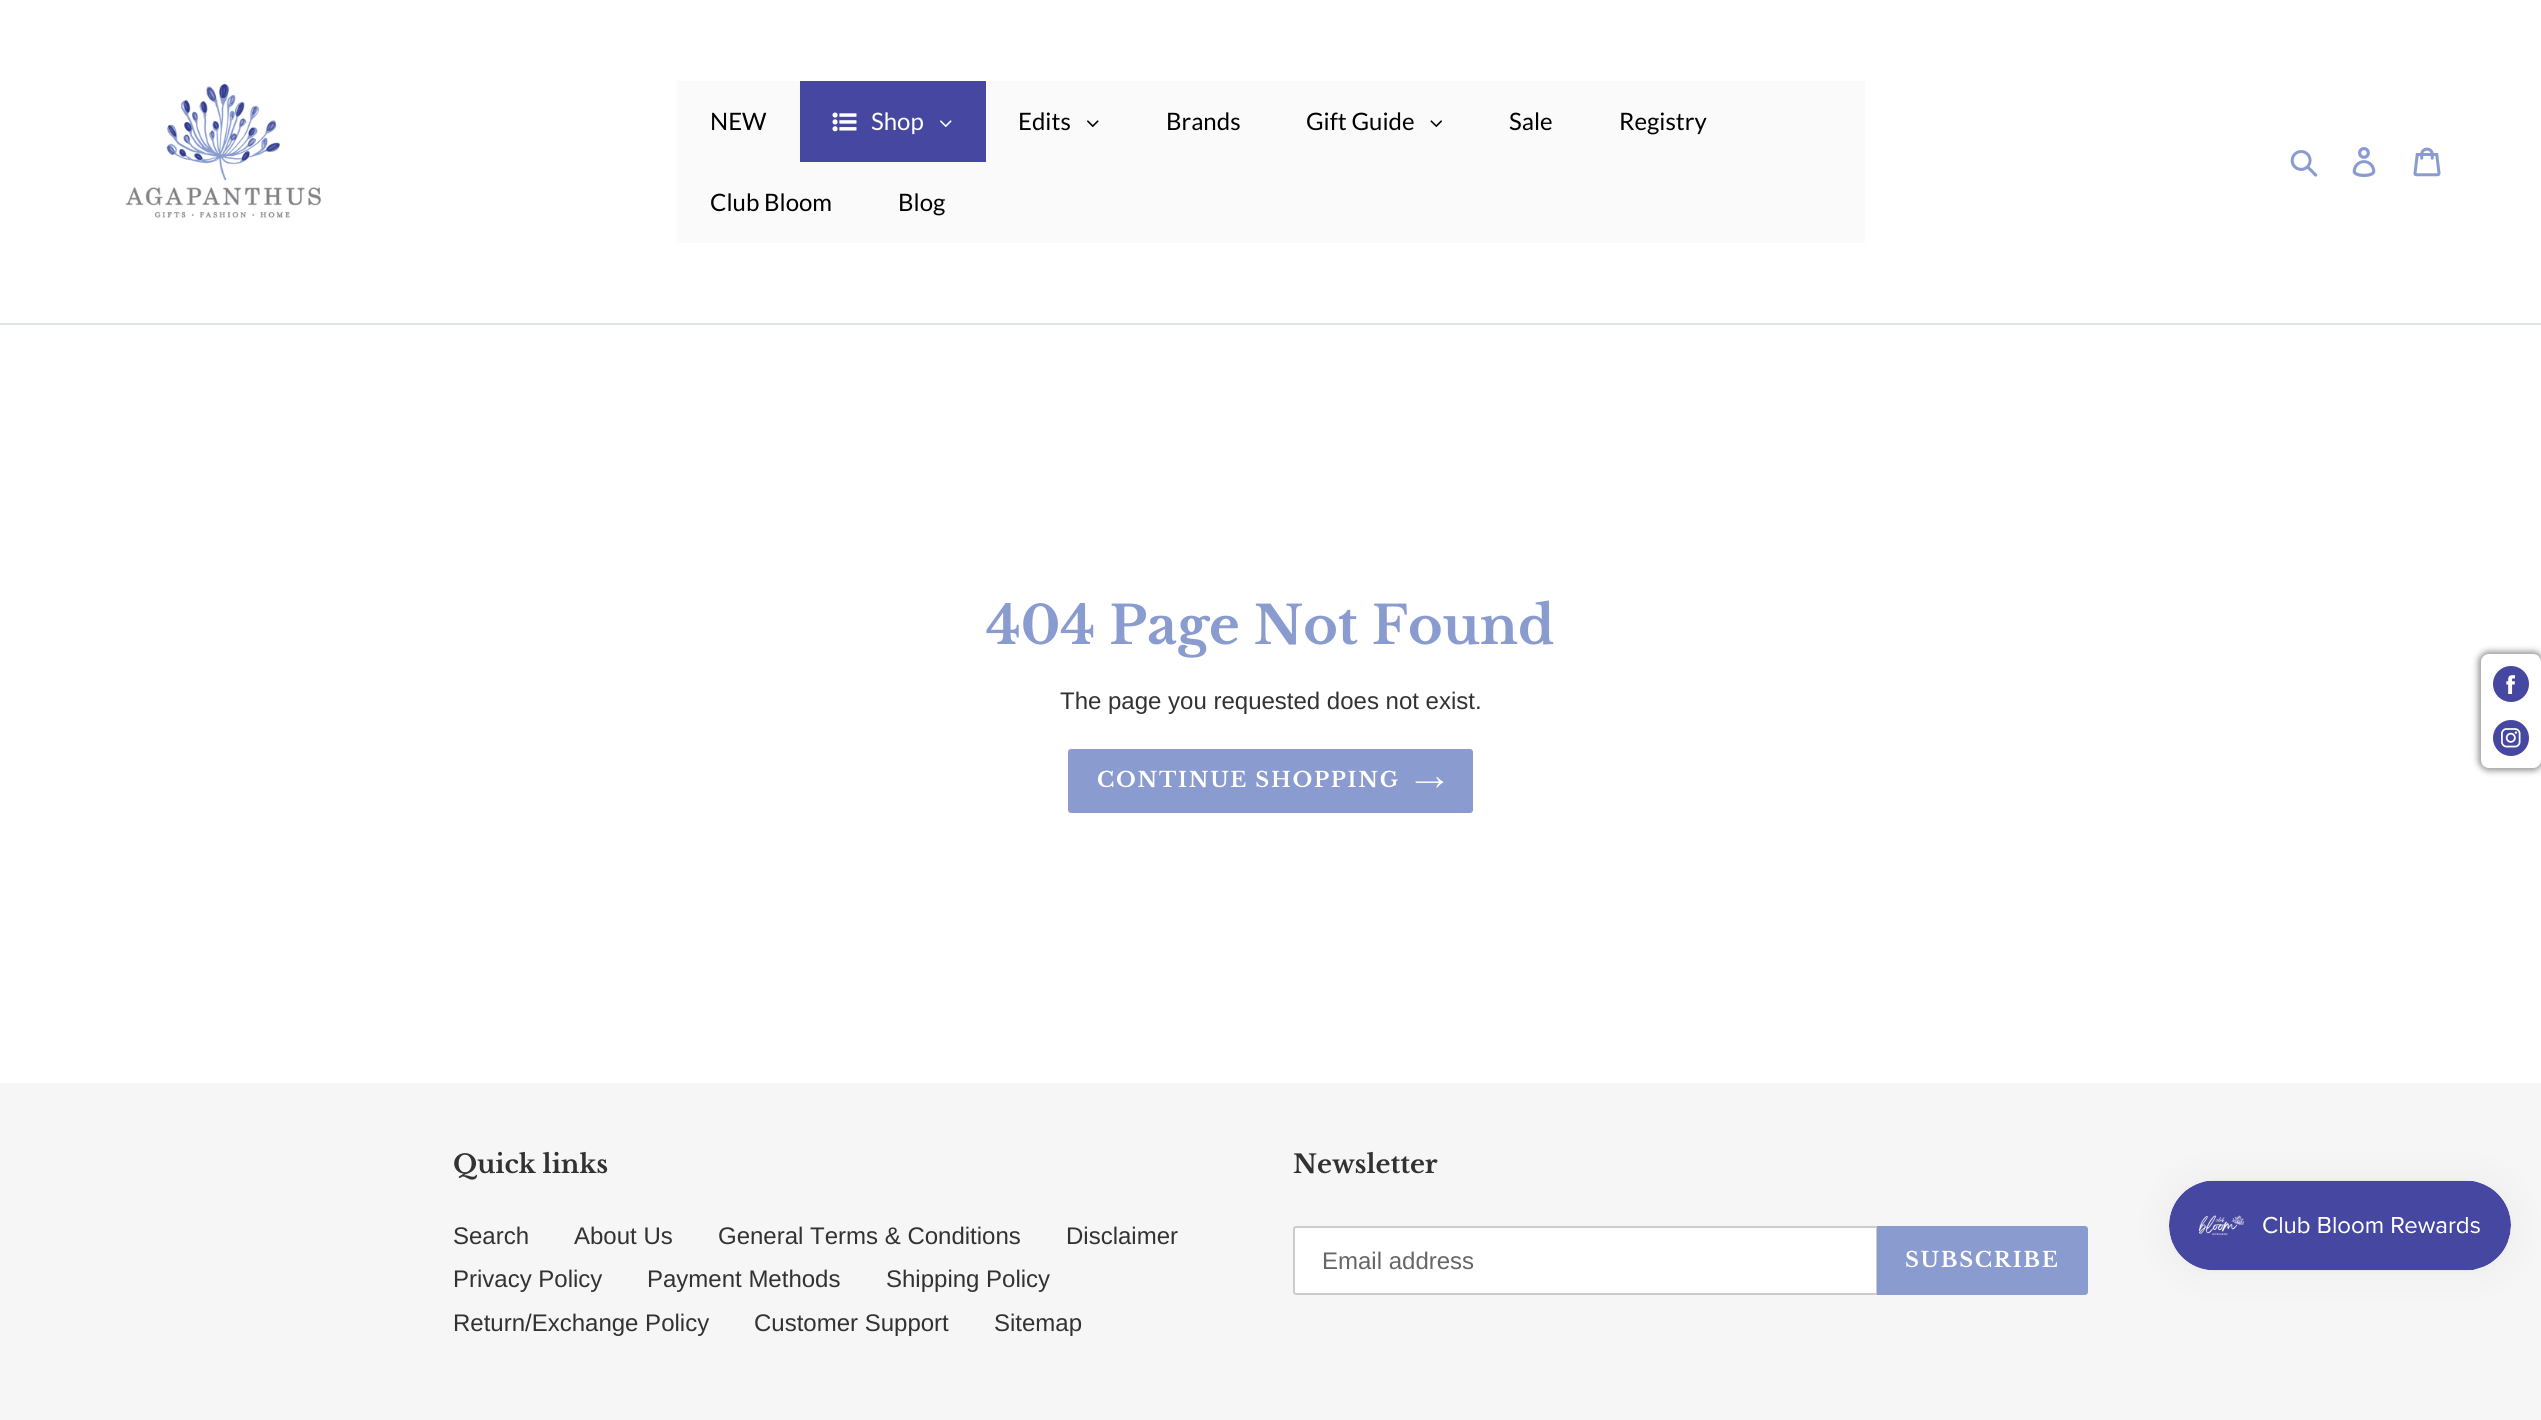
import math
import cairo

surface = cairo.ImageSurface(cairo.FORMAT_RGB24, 2541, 1420)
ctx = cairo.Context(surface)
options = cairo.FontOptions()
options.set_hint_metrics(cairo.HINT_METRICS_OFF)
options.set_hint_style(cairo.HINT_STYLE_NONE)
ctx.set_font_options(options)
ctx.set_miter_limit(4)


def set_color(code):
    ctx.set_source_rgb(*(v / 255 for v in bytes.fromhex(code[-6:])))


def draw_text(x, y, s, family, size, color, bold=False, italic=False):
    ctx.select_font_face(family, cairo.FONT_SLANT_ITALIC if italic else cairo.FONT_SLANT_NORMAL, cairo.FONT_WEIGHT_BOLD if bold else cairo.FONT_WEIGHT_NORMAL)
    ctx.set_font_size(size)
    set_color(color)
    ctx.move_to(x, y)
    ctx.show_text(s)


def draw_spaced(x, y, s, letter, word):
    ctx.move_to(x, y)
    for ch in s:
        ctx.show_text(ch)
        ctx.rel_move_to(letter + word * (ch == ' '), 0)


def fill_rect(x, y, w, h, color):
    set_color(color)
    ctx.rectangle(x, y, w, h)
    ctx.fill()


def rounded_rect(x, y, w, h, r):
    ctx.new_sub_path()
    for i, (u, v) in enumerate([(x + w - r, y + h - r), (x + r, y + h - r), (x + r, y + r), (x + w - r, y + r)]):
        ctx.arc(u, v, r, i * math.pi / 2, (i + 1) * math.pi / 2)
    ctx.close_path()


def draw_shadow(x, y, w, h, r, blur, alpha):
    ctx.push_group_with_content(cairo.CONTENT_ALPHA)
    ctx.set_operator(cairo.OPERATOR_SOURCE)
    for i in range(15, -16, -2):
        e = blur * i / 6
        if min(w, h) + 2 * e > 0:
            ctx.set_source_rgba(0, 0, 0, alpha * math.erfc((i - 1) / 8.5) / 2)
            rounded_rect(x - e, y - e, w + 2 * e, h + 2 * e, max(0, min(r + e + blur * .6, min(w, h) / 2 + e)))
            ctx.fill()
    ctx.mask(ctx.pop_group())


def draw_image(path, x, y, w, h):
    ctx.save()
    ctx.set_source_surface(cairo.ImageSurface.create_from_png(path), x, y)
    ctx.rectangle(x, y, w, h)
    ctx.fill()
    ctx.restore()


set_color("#ffffff")
ctx.paint()
fill_rect(0, 323, 2541, 2, "#dee2e6")
draw_image("assets/img1.png", 125, 83, 197, 135)
fill_rect(677, 81, 1188, 162, "#fafafa")
draw_text(710, 130, "NEW", "Lato", 24, "#000000")
fill_rect(800, 81, 186, 81, "#4647a1")
draw_image("assets/img2.png", 832, 112, 25, 20)
draw_text(871, 130, "Shop", "Lato", 24, "#ffffff")
draw_image("assets/img3.png", 940, 120, 12, 8)
draw_text(1018, 130, "Edits", "Lato", 24, "#000000")
draw_image("assets/img4.png", 1087, 120, 12, 8)
draw_text(1166, 130, "Brands", "Lato", 24, "#000000")
draw_text(1306, 130, "Gift Guide", "Lato", 24, "#000000")
draw_image("assets/img5.png", 1430, 120, 12, 8)
draw_text(1509, 130, "Sale", "Lato", 24, "#000000")
draw_text(1619, 130, "Registry", "Lato", 24, "#000000")
draw_text(710, 211, "Club Bloom", "Lato", 24, "#000000")
draw_text(898, 211, "Blog", "Lato", 24, "#000000")
draw_image("assets/img6.png", 2290, 150, 28, 27)
draw_image("assets/img7.png", 2352, 147, 24, 30)
draw_image("assets/img8.png", 2413, 147, 28, 30)
draw_text(986, 644, "404 Page Not Found", "Libre Baskerville", 52.5, "#899bcf", bold=True)
draw_text(1060, 709, "The page you requested does not exist.", "Liberation Sans", 24, "#333232")
set_color("#899bcf")
rounded_rect(1068, 749, 405, 64, 3)
ctx.fill()
ctx.select_font_face("Libre Baskerville", cairo.FONT_SLANT_NORMAL, cairo.FONT_WEIGHT_BOLD)
ctx.set_font_size(21)
set_color("#ffffff")
draw_spaced(1097, 787, "CONTINUE SHOPPING", 1.7, 0)
draw_image("assets/img9.png", 1415, 776, 29, 12)
fill_rect(0, 1083, 2541, 337, "#f6f6f6")
draw_text(453, 1173, "Quick links", "Libre Baskerville", 25.5, "#333232", bold=True)
draw_text(453, 1244, "Search", "Liberation Sans", 24, "#333232")
draw_text(574, 1244, "About Us", "Liberation Sans", 24, "#333232")
draw_text(718, 1244, "General Terms & Conditions", "Liberation Sans", 24, "#333232")
draw_text(1066, 1244, "Disclaimer", "Liberation Sans", 24, "#333232")
draw_text(453, 1287, "Privacy Policy", "Liberation Sans", 24, "#333232")
draw_text(647, 1287, "Payment Methods", "Liberation Sans", 24, "#333232")
draw_text(886, 1287, "Shipping Policy", "Liberation Sans", 24, "#333232")
draw_text(453, 1331, "Return/Exchange Policy", "Liberation Sans", 24, "#333232")
draw_text(754, 1331, "Customer Support", "Liberation Sans", 24, "#333232")
draw_text(994, 1331, "Sitemap", "Liberation Sans", 24, "#333232")
draw_text(1293, 1173, "Newsletter", "Libre Baskerville", 25.5, "#333232", bold=True)
set_color("#ffffff")
ctx.new_path()
ctx.move_to(1296, 1227)
ctx.line_to(1877, 1227)
ctx.line_to(1877, 1294)
ctx.line_to(1296, 1294)
ctx.curve_to(1295, 1294, 1294, 1293, 1294, 1292)
ctx.line_to(1294, 1229)
ctx.curve_to(1294, 1228, 1295, 1227, 1296, 1227)
ctx.close_path()
ctx.fill_preserve()
set_color("#cccccc")
ctx.stroke()
draw_text(1322, 1269, "Email address", "Liberation Sans", 24, "#666666")
set_color("#899bcf")
ctx.new_path()
ctx.move_to(1877, 1226)
ctx.line_to(2085, 1226)
ctx.curve_to(2086.5, 1226, 2088, 1227.5, 2088, 1229)
ctx.line_to(2088, 1292)
ctx.curve_to(2088, 1293.5, 2086.5, 1295, 2085, 1295)
ctx.line_to(1877, 1295)
ctx.close_path()
ctx.fill()
ctx.select_font_face("Libre Baskerville", cairo.FONT_SLANT_NORMAL, cairo.FONT_WEIGHT_BOLD)
ctx.set_font_size(21)
set_color("#ffffff")
draw_spaced(1905, 1267, "SUBSCRIBE", 1.7, 0)
set_color("#9e9e9e")
draw_shadow(2478, 651, 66, 120, 11, 3, 1)
set_color("#ffffff")
rounded_rect(2481, 654, 60, 114, 8)
ctx.fill()
draw_image("assets/img10.png", 2493, 666, 36, 36)
draw_image("assets/img11.png", 2493, 720, 36, 36)
set_color("#000000")
draw_shadow(2169, 1181, 342, 90, 45, 19, 0.05)
draw_image("assets/img12.png", 2169, 1180, 342, 91)
surface.write_to_png("output.png")
